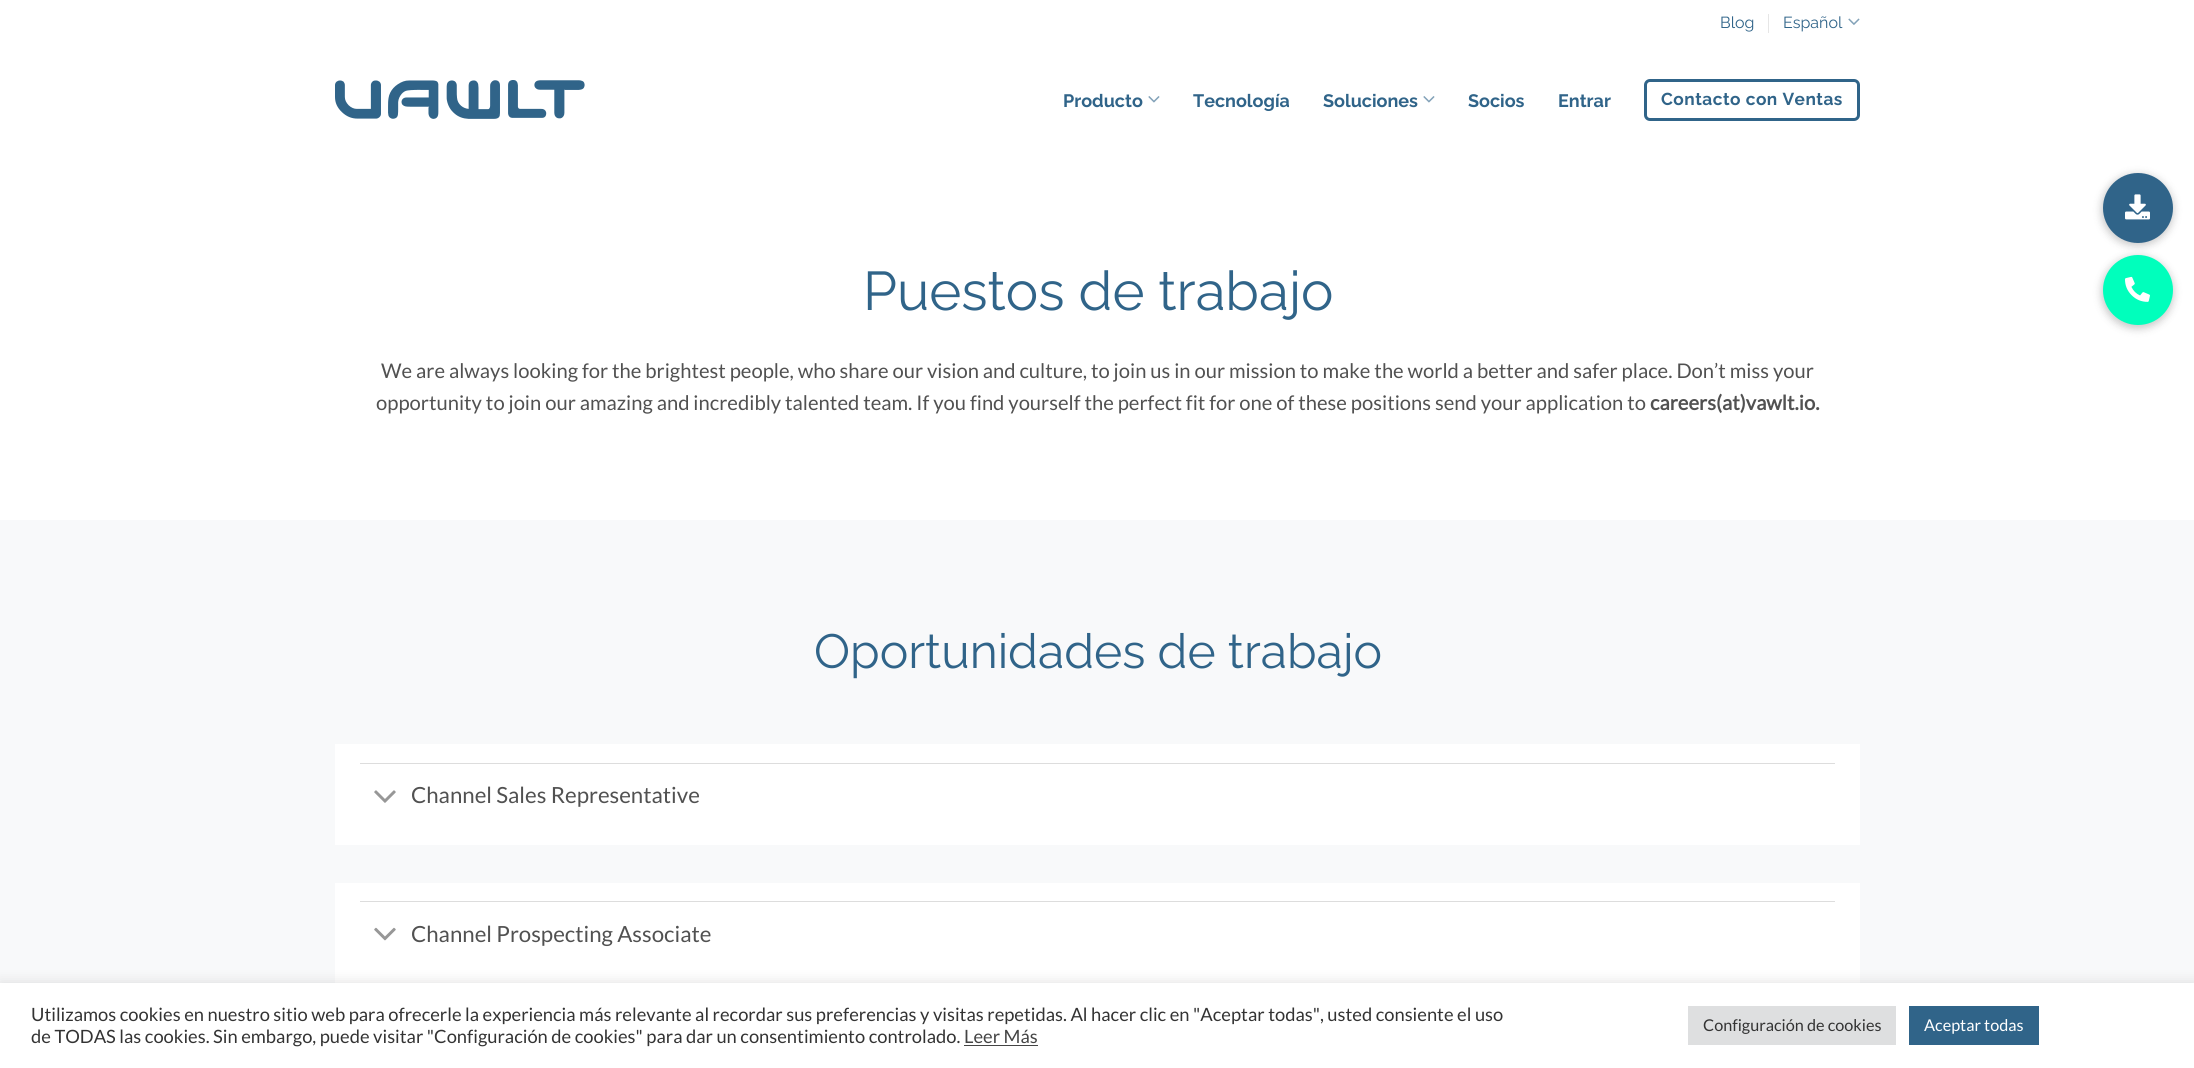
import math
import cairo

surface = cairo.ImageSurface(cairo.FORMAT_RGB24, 2194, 1068)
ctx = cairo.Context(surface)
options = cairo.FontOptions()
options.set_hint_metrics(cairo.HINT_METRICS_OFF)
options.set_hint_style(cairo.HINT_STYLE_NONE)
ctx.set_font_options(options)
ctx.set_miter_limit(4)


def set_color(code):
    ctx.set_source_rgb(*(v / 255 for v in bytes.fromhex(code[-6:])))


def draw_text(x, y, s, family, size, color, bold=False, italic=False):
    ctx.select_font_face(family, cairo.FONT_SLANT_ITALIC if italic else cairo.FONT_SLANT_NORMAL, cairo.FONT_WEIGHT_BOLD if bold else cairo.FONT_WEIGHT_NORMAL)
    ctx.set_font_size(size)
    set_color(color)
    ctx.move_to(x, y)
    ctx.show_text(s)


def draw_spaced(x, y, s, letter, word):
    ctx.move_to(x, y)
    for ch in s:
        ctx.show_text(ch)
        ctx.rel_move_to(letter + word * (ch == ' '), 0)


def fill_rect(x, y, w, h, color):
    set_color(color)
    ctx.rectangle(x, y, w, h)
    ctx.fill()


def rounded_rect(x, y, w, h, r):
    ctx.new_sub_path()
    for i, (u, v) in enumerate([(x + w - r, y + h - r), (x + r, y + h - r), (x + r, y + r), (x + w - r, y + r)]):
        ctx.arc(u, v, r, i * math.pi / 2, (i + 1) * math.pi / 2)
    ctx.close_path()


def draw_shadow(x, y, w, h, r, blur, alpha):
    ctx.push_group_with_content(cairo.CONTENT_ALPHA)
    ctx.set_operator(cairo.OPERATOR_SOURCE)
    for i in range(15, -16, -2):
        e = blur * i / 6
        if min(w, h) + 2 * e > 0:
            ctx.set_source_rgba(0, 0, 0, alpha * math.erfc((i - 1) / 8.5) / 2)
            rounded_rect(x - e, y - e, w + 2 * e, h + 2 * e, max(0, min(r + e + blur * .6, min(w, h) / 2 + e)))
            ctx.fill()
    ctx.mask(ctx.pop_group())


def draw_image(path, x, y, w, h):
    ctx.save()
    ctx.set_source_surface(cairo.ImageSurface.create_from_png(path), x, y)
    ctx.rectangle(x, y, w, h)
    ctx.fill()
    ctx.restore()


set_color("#ffffff")
ctx.paint()
draw_text(1720, 28, "Blog", "Raleway", 16, "#306489")
fill_rect(1768, 14, 1, 19, "#e6e6e6")
draw_text(1783, 28, "Español", "Raleway", 16, "#306489")
draw_image("assets/img1.png", 1848, 18, 12, 7)
draw_image("assets/img2.png", 335, 80, 250, 39)
draw_text(1063, 107, "Producto", "Raleway", 18, "#306489", bold=True)
draw_image("assets/img3.png", 1148, 96, 12, 7)
draw_text(1193, 107, "Tecnología", "Raleway", 18, "#306489", bold=True)
draw_text(1323, 107, "Soluciones", "Raleway", 18, "#306489", bold=True)
draw_image("assets/img3.png", 1423, 96, 12, 7)
draw_text(1468, 107, "Socios", "Raleway", 18, "#306489", bold=True)
draw_text(1558, 107, "Entrar", "Raleway", 18, "#306489", bold=True)
rounded_rect(1645.5, 80.5, 213, 39, 4.5)
ctx.set_line_width(3)
ctx.stroke()
ctx.set_font_size(17.25)
draw_spaced(1661, 105, "Contacto con Ventas", 0.5, 0)
draw_text(863, 310, "Puestos de trabajo", "Raleway", 54.5, "#306489")
draw_text(381, 378, "We are always looking for the brightest people, who share our vision and culture, to join us in our mission to make the world a better and safer place. Don’t miss your", "Lato", 20.2, "#515151")
draw_text(376, 410, "opportunity to join our amazing and incredibly talented team. If you find yourself the perfect fit for one of these positions send your application to", "Lato", 20.2, "#515151")
draw_text(1650, 410, "careers(at)vawlt.io.", "Lato", 20.2, "#515151", bold=True)
fill_rect(0, 520, 2194, 463, "#f8f9fa")
draw_text(814, 668, "Oportunidades de trabajo", "Raleway", 48, "#306489")
fill_rect(335, 744, 1525, 101, "#ffffff")
fill_rect(360, 763, 1475, 1, "#dddddd")
draw_image("assets/img4.png", 374, 790, 22, 13)
draw_text(411, 803, "Channel Sales Representative", "Lato", 22.25, "#515151")
fill_rect(335, 883, 1525, 100, "#ffffff")
fill_rect(360, 901, 1475, 1, "#dddddd")
draw_image("assets/img5.png", 374, 927, 22, 14)
draw_text(411, 942, "Channel Prospecting Associate", "Lato", 22.25, "#515151")
set_color("#000000")
draw_shadow(2101, 174, 73, 72, 36, 4, 0.2)
set_color("#306489")
ctx.arc(2138, 208, 35, 0, 2 * math.pi)
ctx.fill()
draw_image("assets/img6.png", 2125, 194, 25, 26)
set_color("#000000")
draw_shadow(2101, 256, 73, 73, 36.5, 4, 0.2)
set_color("#00ffbc")
ctx.arc(2138, 290, 35, 0, 2 * math.pi)
ctx.fill()
draw_image("assets/img7.png", 2125, 276, 25, 26)
set_color("#acabab")
draw_shadow(0, 981, 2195, 87, 0, 6, 0.3)
fill_rect(0, 983, 2194, 85, "#ffffff")
draw_text(31, 1021, "Utilizamos cookies en nuestro sitio web para ofrecerle la experiencia más relevante al recordar sus preferencias y visitas repetidas. Al hacer clic en \"Aceptar todas\", usted consiente el uso", "Lato", 18.33, "#333333")
draw_text(31, 1043, "de TODAS las cookies. Sin embargo, puede visitar \"Configuración de cookies\" para dar un consentimiento controlado.", "Lato", 18.33, "#333333")
draw_text(964, 1043, "Leer Más", "Lato", 18.33, "#444444")
fill_rect(964, 1045, 74, 1, "#444444")
fill_rect(1688, 1006, 208, 39, "#dedfe0")
draw_text(1703, 1031, "Configuración de cookies", "Lato", 16.25, "#333333")
fill_rect(1909, 1006, 130, 39, "#306489")
draw_text(1924, 1031, "Aceptar todas", "Lato", 16.25, "#ffffff")
surface.write_to_png("output.png")
